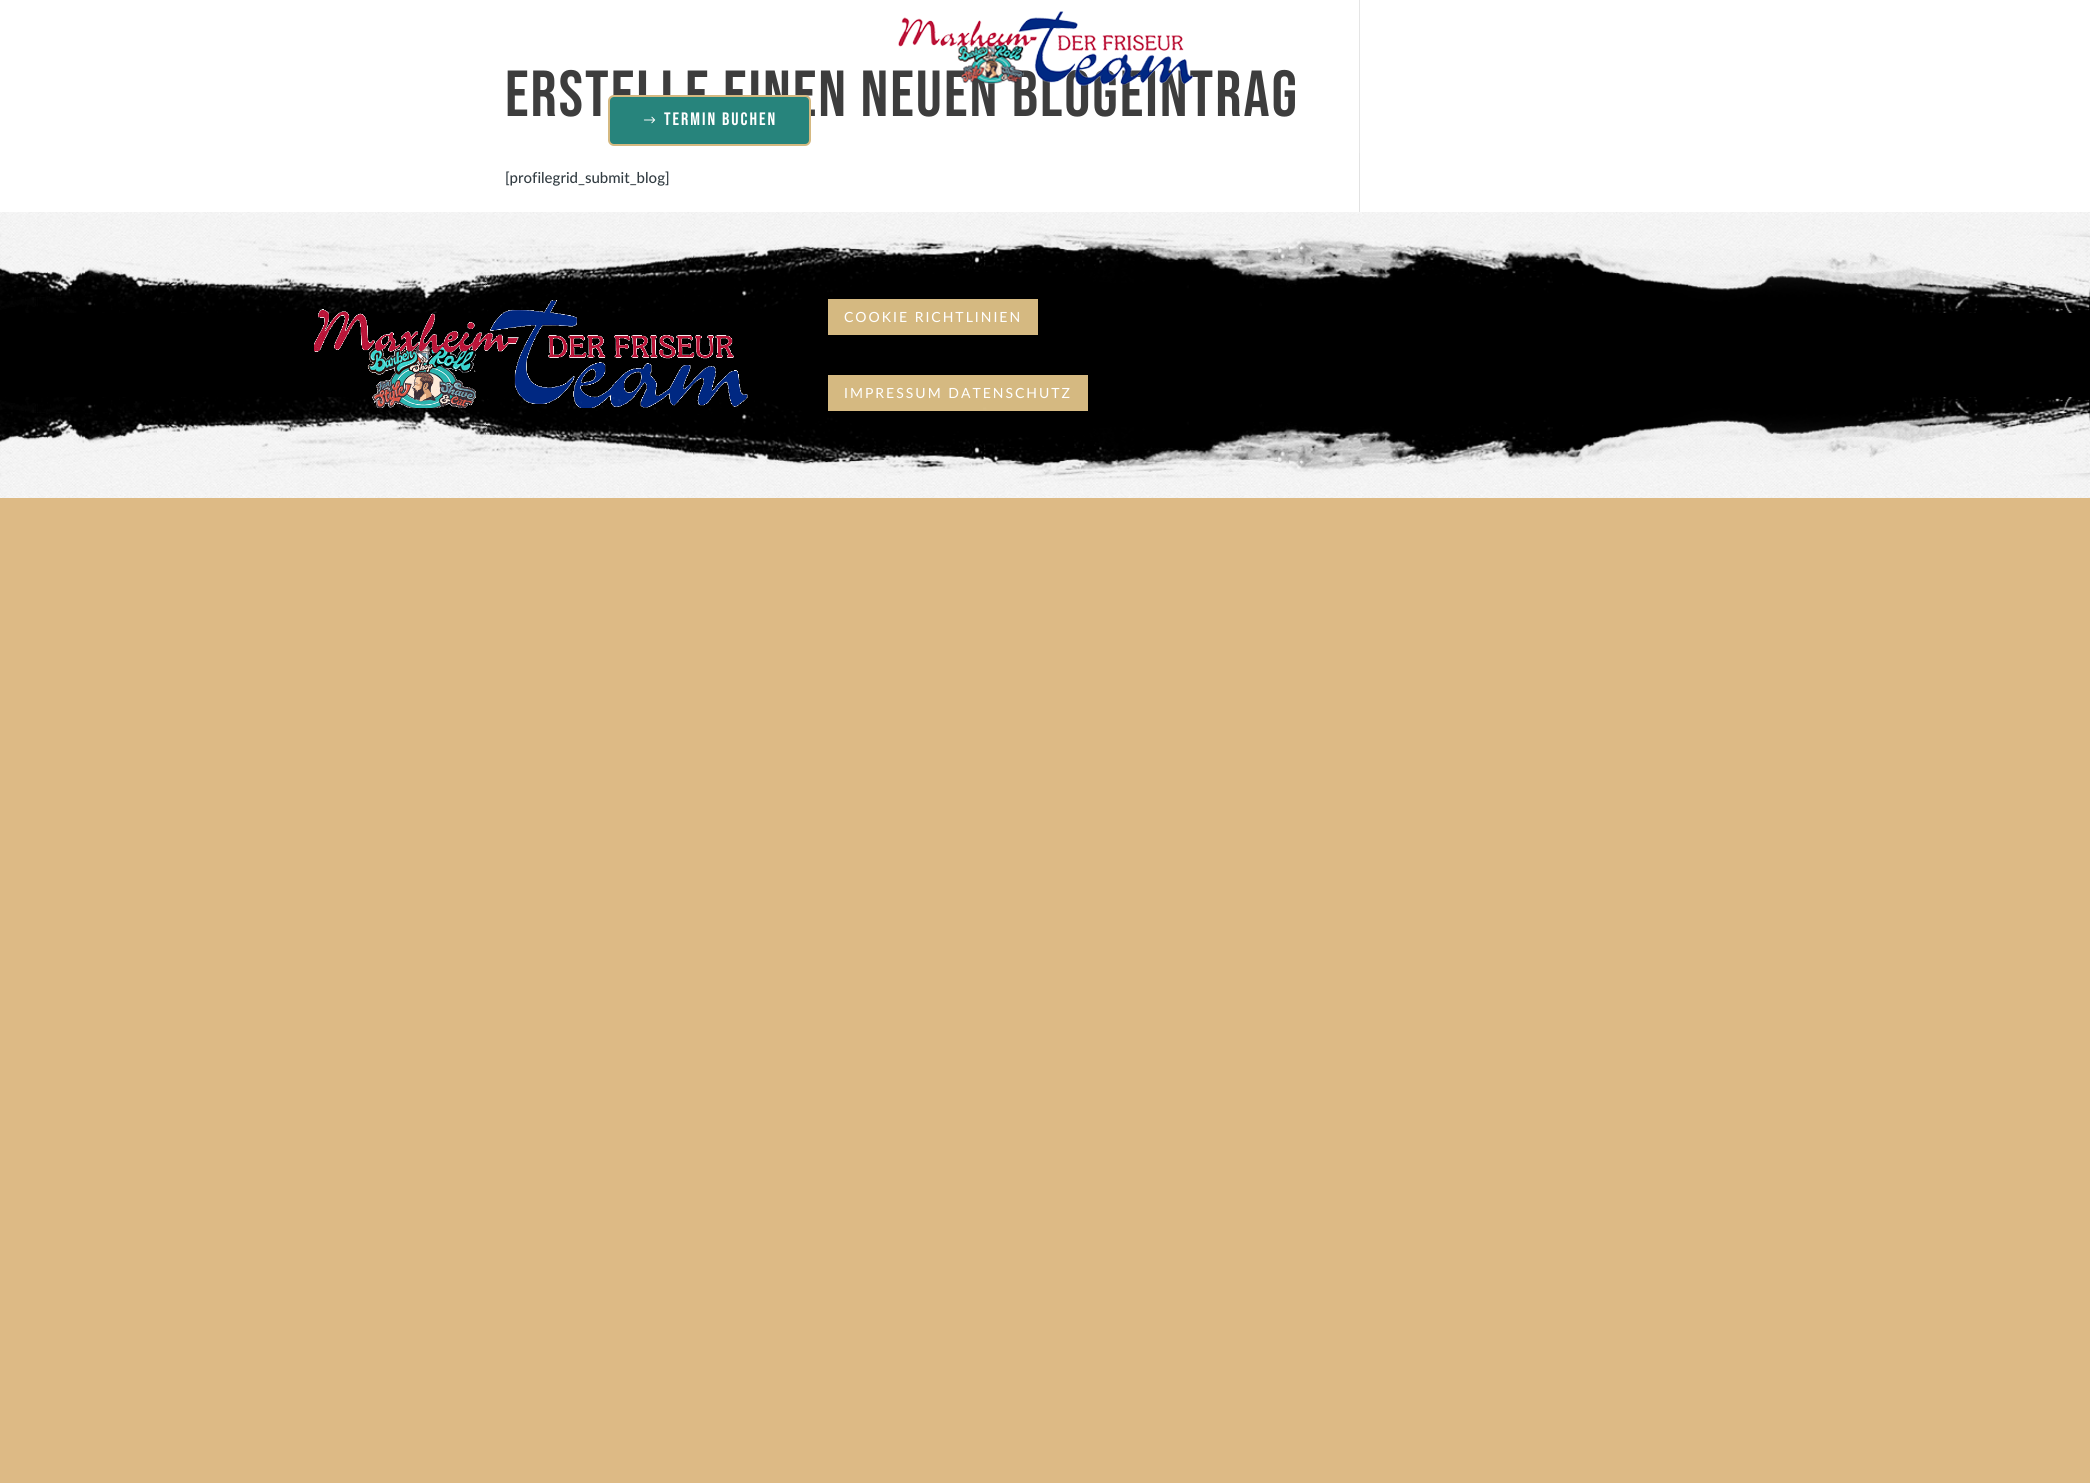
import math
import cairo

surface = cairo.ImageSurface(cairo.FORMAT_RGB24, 2090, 1483)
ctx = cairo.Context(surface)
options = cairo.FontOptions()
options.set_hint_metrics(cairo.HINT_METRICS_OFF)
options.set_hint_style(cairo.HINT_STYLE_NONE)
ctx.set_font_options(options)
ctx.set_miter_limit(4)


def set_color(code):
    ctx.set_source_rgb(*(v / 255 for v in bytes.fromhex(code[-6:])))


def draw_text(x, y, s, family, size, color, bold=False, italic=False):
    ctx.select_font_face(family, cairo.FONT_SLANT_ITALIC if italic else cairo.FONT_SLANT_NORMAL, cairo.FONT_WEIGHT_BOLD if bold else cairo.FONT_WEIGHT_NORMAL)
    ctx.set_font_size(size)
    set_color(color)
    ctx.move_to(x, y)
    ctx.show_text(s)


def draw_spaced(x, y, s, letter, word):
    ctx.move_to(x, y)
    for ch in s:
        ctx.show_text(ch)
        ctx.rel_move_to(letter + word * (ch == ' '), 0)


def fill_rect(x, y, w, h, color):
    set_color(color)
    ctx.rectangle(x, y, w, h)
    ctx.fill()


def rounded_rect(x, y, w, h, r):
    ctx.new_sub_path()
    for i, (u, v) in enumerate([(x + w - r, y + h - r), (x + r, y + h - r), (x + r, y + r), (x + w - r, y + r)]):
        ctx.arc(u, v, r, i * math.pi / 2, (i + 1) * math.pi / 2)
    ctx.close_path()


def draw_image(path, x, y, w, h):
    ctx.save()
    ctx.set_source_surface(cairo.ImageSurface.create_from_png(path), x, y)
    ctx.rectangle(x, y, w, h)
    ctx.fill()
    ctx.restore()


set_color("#ddba85")
ctx.paint()
fill_rect(0, 0, 2090, 212, "#ffffff")
ctx.select_font_face("Bebas Neue")
ctx.set_font_size(65)
set_color("#3d3d3d")
draw_spaced(505, 116, "ERSTELLE EINEN NEUEN BLOGEINTRAG", 2, 0)
draw_text(505, 183, "[profilegrid_submit_blog]", "Lato Medium", 15, "#323c42")
fill_rect(1359, 153, 1, 59, "#e2e2e2")
fill_rect(1359, 0, 1, 153, "#e5e5e5")
fill_rect(0, 219, 2090, 272, "#000000")
draw_image("assets/img1.png", 0, 212, 2090, 101)
draw_image("assets/img2.png", 314, 300, 434, 108)
fill_rect(828, 299, 210, 36, "#d5b981")
ctx.select_font_face("Lato")
ctx.set_font_size(14)
set_color("#ffffff")
draw_spaced(844, 322, "COOKIE RICHTLINIEN", 2, 0)
fill_rect(828, 375, 260, 36, "#d5b981")
set_color("#ffffff")
draw_spaced(844, 398, "IMPRESSUM DATENSCHUTZ", 2, 0)
draw_image("assets/img3.png", 0, 397, 2090, 101)
draw_image("assets/img4.png", 898, 11, 295, 75)
set_color("#27847c")
rounded_rect(609, 96, 201, 49, 5)
ctx.fill_preserve()
set_color("#d5b981")
ctx.stroke()
draw_image("assets/img5.png", 643, 116, 13, 8)
ctx.select_font_face("Bebas Neue")
ctx.set_font_size(18)
set_color("#ffffff")
draw_spaced(664, 125, "TERMIN BUCHEN", 2, 0)
surface.write_to_png("output.png")
